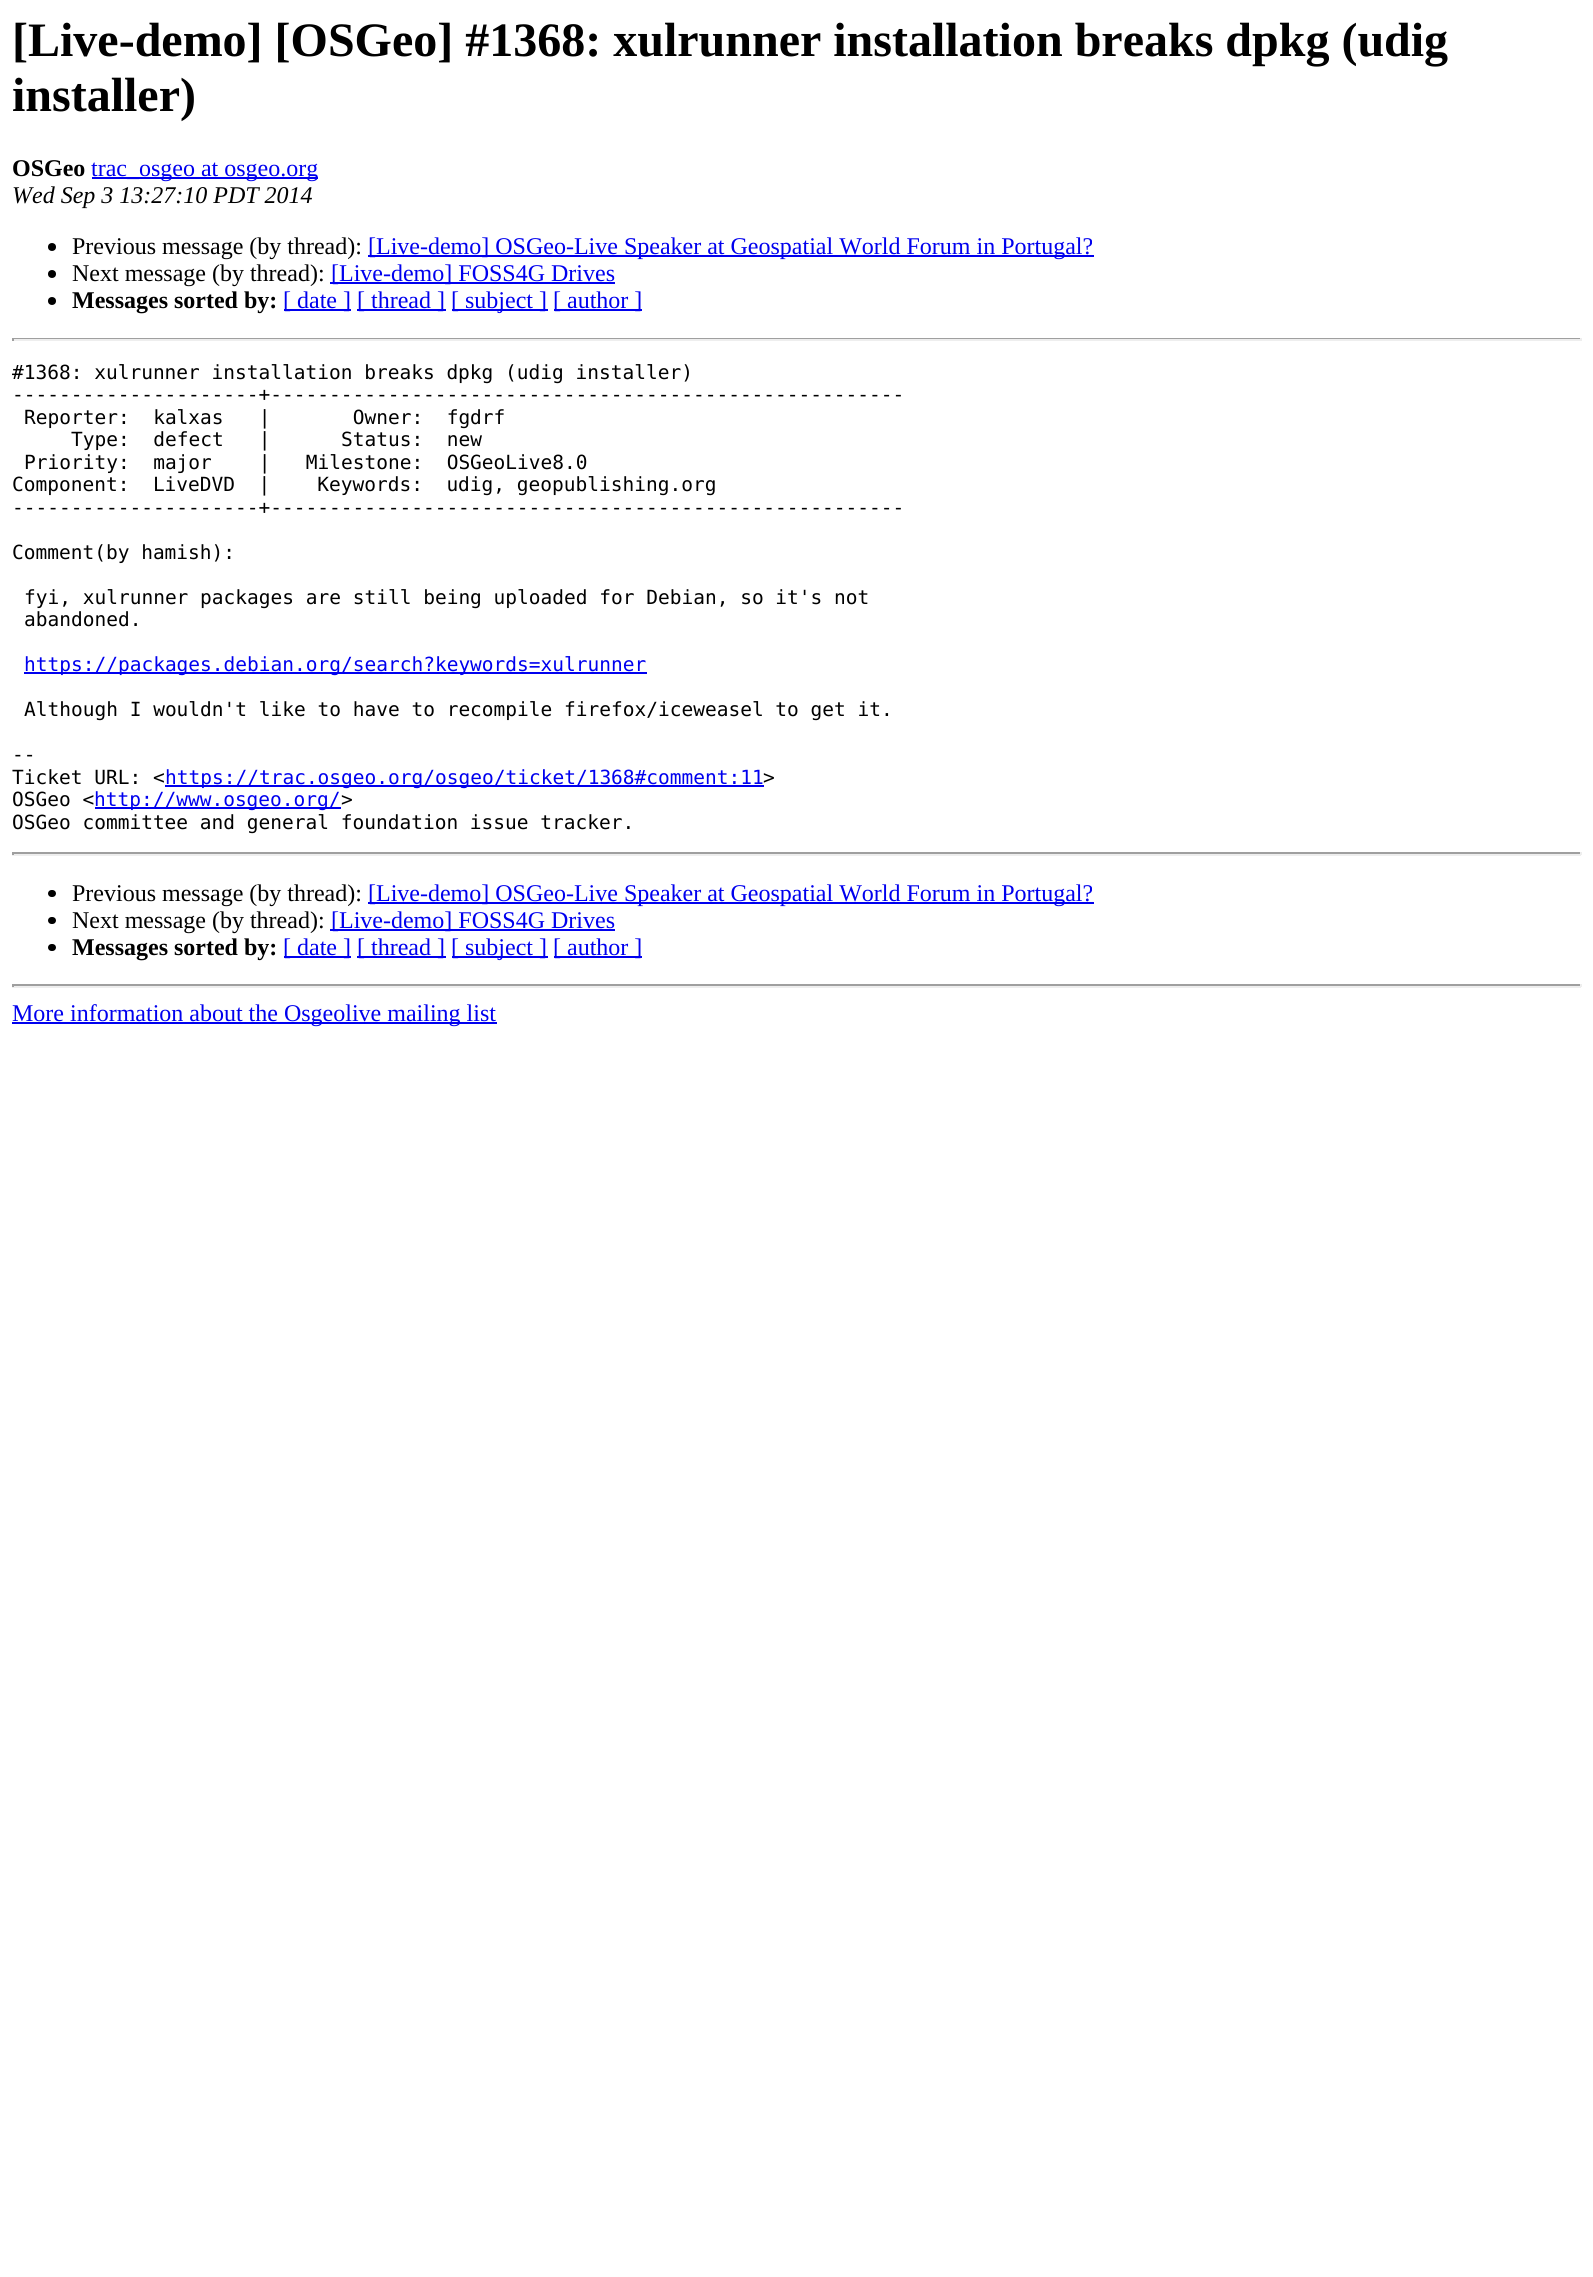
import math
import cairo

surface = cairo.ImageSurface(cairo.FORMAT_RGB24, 1593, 2277)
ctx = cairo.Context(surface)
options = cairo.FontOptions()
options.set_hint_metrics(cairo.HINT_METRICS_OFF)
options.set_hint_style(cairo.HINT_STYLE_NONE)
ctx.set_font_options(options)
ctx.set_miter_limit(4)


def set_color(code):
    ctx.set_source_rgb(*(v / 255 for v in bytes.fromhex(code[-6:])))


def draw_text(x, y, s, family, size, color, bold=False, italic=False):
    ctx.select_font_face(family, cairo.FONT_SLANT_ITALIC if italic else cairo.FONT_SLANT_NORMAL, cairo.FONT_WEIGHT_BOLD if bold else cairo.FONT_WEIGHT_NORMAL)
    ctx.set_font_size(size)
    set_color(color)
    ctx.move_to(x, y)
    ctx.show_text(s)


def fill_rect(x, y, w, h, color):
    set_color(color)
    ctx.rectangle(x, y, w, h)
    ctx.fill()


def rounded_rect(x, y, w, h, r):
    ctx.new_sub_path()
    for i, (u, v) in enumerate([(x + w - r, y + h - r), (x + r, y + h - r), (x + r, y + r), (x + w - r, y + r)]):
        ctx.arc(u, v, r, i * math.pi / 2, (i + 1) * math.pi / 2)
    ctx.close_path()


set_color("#ffffff")
ctx.paint()
draw_text(12, 56, "[Live-demo] [OSGeo] #1368: xulrunner installation breaks dpkg (udig", "Liberation Serif", 48, "#000000", bold=True)
draw_text(12, 111, "installer)", "Liberation Serif", 48, "#000000", bold=True)
draw_text(12, 176, "OSGeo", "Liberation Serif", 24, "#000000", bold=True)
fill_rect(92, 177, 226, 2, "#0000ee")
draw_text(91, 176, "trac_osgeo at osgeo.org", "Liberation Serif", 24, "#0000ee")
draw_text(12, 203, "Wed Sep 3 13:27:10 PDT 2014", "Liberation Serif", 24, "#000000", italic=True)
ctx.new_path()
ctx.arc(52, 247, 4, 0, 2 * math.pi)
ctx.fill()
draw_text(72, 254, "Previous message (by thread):", "Liberation Serif", 24, "#000000")
fill_rect(368, 255, 726, 2, "#0000ee")
draw_text(368, 254, "[Live-demo] OSGeo-Live Speaker at Geospatial World Forum in Portugal?", "Liberation Serif", 24, "#0000ee")
set_color("#000000")
ctx.new_path()
ctx.arc(52, 274, 4, 0, 2 * math.pi)
ctx.fill()
draw_text(72, 281, "Next message (by thread):", "Liberation Serif", 24, "#000000")
fill_rect(330, 282, 285, 2, "#0000ee")
draw_text(331, 281, "[Live-demo] FOSS4G Drives", "Liberation Serif", 24, "#0000ee")
set_color("#000000")
ctx.new_path()
ctx.arc(52, 301, 4, 0, 2 * math.pi)
ctx.fill()
draw_text(72, 308, "Messages sorted by:", "Liberation Serif", 24, "#000000", bold=True)
fill_rect(284, 309, 67, 2, "#0000ee")
draw_text(283, 308, "[ date ]", "Liberation Serif", 24, "#0000ee")
fill_rect(357, 309, 89, 2, "#0000ee")
draw_text(357, 308, "[ thread ]", "Liberation Serif", 24, "#0000ee")
fill_rect(452, 309, 96, 2, "#0000ee")
draw_text(451, 308, "[ subject ]", "Liberation Serif", 24, "#0000ee")
fill_rect(554, 309, 88, 2, "#0000ee")
draw_text(553, 308, "[ author ]", "Liberation Serif", 24, "#0000ee")
fill_rect(12, 338, 1569, 1, "#9f9f9f")
fill_rect(1580, 338, 2, 3, "#eeeeee")
fill_rect(12, 339, 1569, 2, "#eeeeee")
fill_rect(12, 338, 2, 3, "#9f9f9f")
draw_text(12, 379, "#1368: xulrunner installation breaks dpkg (udig installer)", "DejaVu Sans Mono", 19.5, "#000000")
draw_text(12, 401, "---------------------+------------------------------------------------------", "DejaVu Sans Mono", 19.5, "#000000")
draw_text(24, 424, "Reporter:  kalxas   |       Owner:  fgdrf", "DejaVu Sans Mono", 19.5, "#000000")
draw_text(71, 446, "Type:  defect   |      Status:  new", "DejaVu Sans Mono", 19.5, "#000000")
draw_text(24, 469, "Priority:  major    |   Milestone:  OSGeoLive8.0", "DejaVu Sans Mono", 19.5, "#000000")
draw_text(12, 491, "Component:  LiveDVD  |    Keywords:  udig, geopublishing.org", "DejaVu Sans Mono", 19.5, "#000000")
draw_text(12, 514, "---------------------+------------------------------------------------------", "DejaVu Sans Mono", 19.5, "#000000")
draw_text(12, 559, "Comment(by hamish):", "DejaVu Sans Mono", 19.5, "#000000")
draw_text(24, 604, "fyi, xulrunner packages are still being uploaded for Debian, so it's not", "DejaVu Sans Mono", 19.5, "#000000")
draw_text(24, 626, "abandoned.", "DejaVu Sans Mono", 19.5, "#000000")
fill_rect(24, 672, 623, 2, "#0000ee")
draw_text(24, 671, "https://packages.debian.org/search?keywords=xulrunner", "DejaVu Sans Mono", 19.5, "#0000ee")
draw_text(24, 716, "Although I wouldn't like to have to recompile firefox/iceweasel to get it.", "DejaVu Sans Mono", 19.5, "#000000")
draw_text(12, 761, "--", "DejaVu Sans Mono", 19.5, "#000000")
draw_text(12, 784, "Ticket URL: <", "DejaVu Sans Mono", 19.5, "#000000")
fill_rect(165, 785, 599, 2, "#0000ee")
draw_text(165, 784, "https://trac.osgeo.org/osgeo/ticket/1368#comment:11", "DejaVu Sans Mono", 19.5, "#0000ee")
draw_text(763, 784, ">", "DejaVu Sans Mono", 19.5, "#000000")
draw_text(12, 806, "OSGeo <", "DejaVu Sans Mono", 19.5, "#000000")
fill_rect(95, 807, 246, 2, "#0000ee")
draw_text(94, 806, "http://www.osgeo.org/", "DejaVu Sans Mono", 19.5, "#0000ee")
draw_text(341, 806, ">", "DejaVu Sans Mono", 19.5, "#000000")
draw_text(12, 829, "OSGeo committee and general foundation issue tracker.", "DejaVu Sans Mono", 19.5, "#000000")
fill_rect(12, 852, 1569, 2, "#9f9f9f")
fill_rect(1580, 852, 2, 3, "#eeeeee")
fill_rect(12, 854, 1569, 2, "#eeeeee")
fill_rect(12, 852, 2, 3, "#9f9f9f")
set_color("#000000")
rounded_rect(48, 890, 8, 7, 3.5)
ctx.fill()
draw_text(72, 901, "Previous message (by thread):", "Liberation Serif", 24, "#000000")
fill_rect(368, 902, 726, 2, "#0000ee")
draw_text(368, 901, "[Live-demo] OSGeo-Live Speaker at Geospatial World Forum in Portugal?", "Liberation Serif", 24, "#0000ee")
set_color("#000000")
rounded_rect(48, 917, 8, 7, 3.5)
ctx.fill()
draw_text(72, 928, "Next message (by thread):", "Liberation Serif", 24, "#000000")
fill_rect(330, 929, 285, 2, "#0000ee")
draw_text(331, 928, "[Live-demo] FOSS4G Drives", "Liberation Serif", 24, "#0000ee")
set_color("#000000")
rounded_rect(48, 944, 8, 7, 3.5)
ctx.fill()
draw_text(72, 955, "Messages sorted by:", "Liberation Serif", 24, "#000000", bold=True)
fill_rect(284, 956, 67, 2, "#0000ee")
draw_text(283, 955, "[ date ]", "Liberation Serif", 24, "#0000ee")
fill_rect(357, 956, 89, 2, "#0000ee")
draw_text(357, 955, "[ thread ]", "Liberation Serif", 24, "#0000ee")
fill_rect(452, 956, 96, 2, "#0000ee")
draw_text(451, 955, "[ subject ]", "Liberation Serif", 24, "#0000ee")
fill_rect(554, 956, 88, 2, "#0000ee")
draw_text(553, 955, "[ author ]", "Liberation Serif", 24, "#0000ee")
fill_rect(12, 984, 1569, 2, "#9f9f9f")
fill_rect(1580, 984, 2, 3, "#eeeeee")
fill_rect(12, 986, 1569, 2, "#eeeeee")
fill_rect(12, 984, 2, 3, "#9f9f9f")
fill_rect(12, 1022, 485, 2, "#0000ee")
draw_text(12, 1021, "More information about the Osgeolive mailing list", "Liberation Serif", 24, "#0000ee")
surface.write_to_png("output.png")
